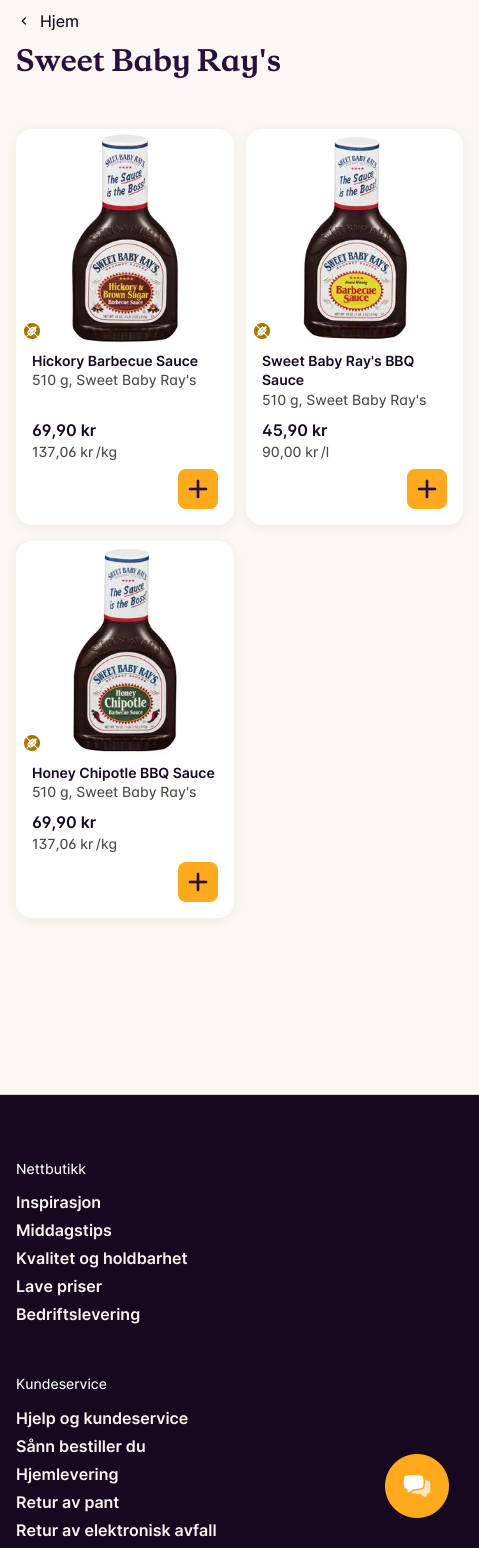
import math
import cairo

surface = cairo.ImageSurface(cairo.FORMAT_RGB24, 479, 1548)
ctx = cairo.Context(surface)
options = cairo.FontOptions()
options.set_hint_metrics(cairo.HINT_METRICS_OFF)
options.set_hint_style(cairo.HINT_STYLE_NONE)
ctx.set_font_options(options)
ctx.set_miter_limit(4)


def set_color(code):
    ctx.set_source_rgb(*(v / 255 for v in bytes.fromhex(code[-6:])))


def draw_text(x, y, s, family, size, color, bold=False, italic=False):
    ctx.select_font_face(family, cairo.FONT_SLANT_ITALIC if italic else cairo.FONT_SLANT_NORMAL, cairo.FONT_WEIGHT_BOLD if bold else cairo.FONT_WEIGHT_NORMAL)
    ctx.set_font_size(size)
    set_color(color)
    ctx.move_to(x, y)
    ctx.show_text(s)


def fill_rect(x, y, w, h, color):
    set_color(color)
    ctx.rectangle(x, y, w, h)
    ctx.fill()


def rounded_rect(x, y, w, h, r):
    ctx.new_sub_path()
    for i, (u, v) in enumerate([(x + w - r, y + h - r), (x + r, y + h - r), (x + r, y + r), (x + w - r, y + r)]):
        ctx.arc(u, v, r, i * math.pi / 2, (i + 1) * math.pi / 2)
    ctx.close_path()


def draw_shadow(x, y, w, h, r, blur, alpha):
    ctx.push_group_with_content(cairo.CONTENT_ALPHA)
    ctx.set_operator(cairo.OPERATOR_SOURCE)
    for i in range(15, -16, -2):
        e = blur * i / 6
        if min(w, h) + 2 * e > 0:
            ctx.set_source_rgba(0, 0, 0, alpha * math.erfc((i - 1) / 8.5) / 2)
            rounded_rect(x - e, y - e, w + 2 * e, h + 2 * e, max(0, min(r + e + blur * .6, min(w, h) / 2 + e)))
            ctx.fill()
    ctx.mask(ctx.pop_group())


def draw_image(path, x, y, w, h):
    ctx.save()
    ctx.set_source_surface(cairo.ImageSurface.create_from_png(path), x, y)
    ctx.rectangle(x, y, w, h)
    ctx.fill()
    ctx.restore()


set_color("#fbf8f3")
ctx.paint()
draw_image("assets/img1.png", 21, 17, 5, 8)
draw_text(40, 27, "Hjem", "Inter", 16, "#160821")
draw_image("assets/img2.png", 17, 48, 263, 30)
set_color("#42403d")
draw_shadow(16, 131, 218, 396, 16, 6, 0.08)
set_color("#ffffff")
rounded_rect(16, 129, 218, 396, 16)
ctx.fill()
draw_image("assets/img3.png", 24, 323, 16, 16)
draw_image("assets/img4.png", 70, 133, 109, 210)
draw_text(32, 366, "Hickory Barbecue Sauce", "Inter SemiBold", 14, "#160821")
draw_text(32, 385, "510 g, Sweet Baby Ray's", "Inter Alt", 14, "#4b4844")
draw_text(32, 436, "69,90 kr", "Inter Alt SemiBold", 16, "#160821")
draw_text(32, 457, "137,06 kr /kg", "Inter Alt", 14, "#4b4844")
set_color("#ffaa1e")
rounded_rect(178.5, 469.5, 39, 39, 7.5)
ctx.fill_preserve()
ctx.set_line_width(1)
ctx.stroke()
draw_image("assets/img5.png", 188, 479, 20, 20)
set_color("#42403d")
draw_shadow(246, 131, 217, 396, 16, 6, 0.08)
set_color("#ffffff")
rounded_rect(246, 129, 217, 396, 16)
ctx.fill()
draw_image("assets/img6.png", 254, 323, 16, 16)
draw_image("assets/img7.png", 300, 137, 109, 204)
draw_text(262, 366, "Sweet Baby Ray's BBQ", "Inter SemiBold", 14, "#160821")
draw_text(262, 385, "Sauce", "Inter SemiBold", 14, "#160821")
draw_text(262, 405, "510 g, Sweet Baby Ray's", "Inter Alt", 14, "#4b4844")
draw_text(262, 436, "45,90 kr", "Inter Alt SemiBold", 16, "#160821")
draw_text(262, 457, "90,00 kr /l", "Inter", 14, "#4b4844")
set_color("#ffaa1e")
rounded_rect(407.5, 469.5, 39, 39, 7.5)
ctx.fill_preserve()
ctx.stroke()
draw_image("assets/img5.png", 417, 479, 20, 20)
set_color("#42403d")
draw_shadow(16, 543, 218, 377, 16, 6, 0.08)
set_color("#ffffff")
rounded_rect(16, 541, 218, 377, 16)
ctx.fill()
draw_image("assets/img8.png", 24, 735, 16, 16)
draw_image("assets/img9.png", 70, 549, 109, 206)
draw_text(32, 778, "Honey Chipotle BBQ Sauce", "Inter SemiBold", 14, "#160821")
draw_text(32, 797, "510 g, Sweet Baby Ray's", "Inter Alt", 14, "#4b4844")
draw_text(32, 828, "69,90 kr", "Inter Alt SemiBold", 16, "#160821")
draw_text(32, 849, "137,06 kr /kg", "Inter Alt", 14, "#4b4844")
set_color("#ffaa1e")
rounded_rect(178.5, 862.5, 39, 39, 7.5)
ctx.fill_preserve()
ctx.stroke()
draw_image("assets/img5.png", 188, 872, 20, 20)
fill_rect(0, 1095, 479, 453, "#160821")
fill_rect(0, 1094, 479, 1, "#d8d2cb")
draw_text(16, 1174, "Nettbutikk", "Inter", 14, "#ffffff")
draw_text(16, 1208, "Inspirasjon", "Inter SemiBold", 16, "#f9f5ef")
draw_text(16, 1236, "Middagstips", "Inter SemiBold", 16, "#f9f5ef")
draw_text(16, 1264, "Kvalitet og holdbarhet", "Inter SemiBold", 16, "#f9f5ef")
draw_text(16, 1292, "Lave priser", "Inter SemiBold", 16, "#f9f5ef")
draw_text(16, 1320, "Bedriftslevering", "Inter SemiBold", 16, "#f9f5ef")
draw_text(16, 1389, "Kundeservice", "Inter", 14, "#ffffff")
draw_text(16, 1424, "Hjelp og kundeservice", "Inter SemiBold", 16, "#f9f5ef")
draw_text(16, 1452, "Sånn bestiller du", "Inter SemiBold", 16, "#f9f5ef")
draw_text(16, 1480, "Hjemlevering", "Inter SemiBold", 16, "#f9f5ef")
draw_text(16, 1508, "Retur av pant", "Inter SemiBold", 16, "#f9f5ef")
draw_text(16, 1536, "Retur av elektronisk avfall", "Inter SemiBold", 16, "#f9f5ef")
set_color("#ffaa1e")
ctx.new_path()
ctx.arc(417, 1486, 32, 0, 2 * math.pi)
ctx.fill()
draw_image("assets/img10.png", 403, 1475, 28, 23)
surface.write_to_png("output.png")
